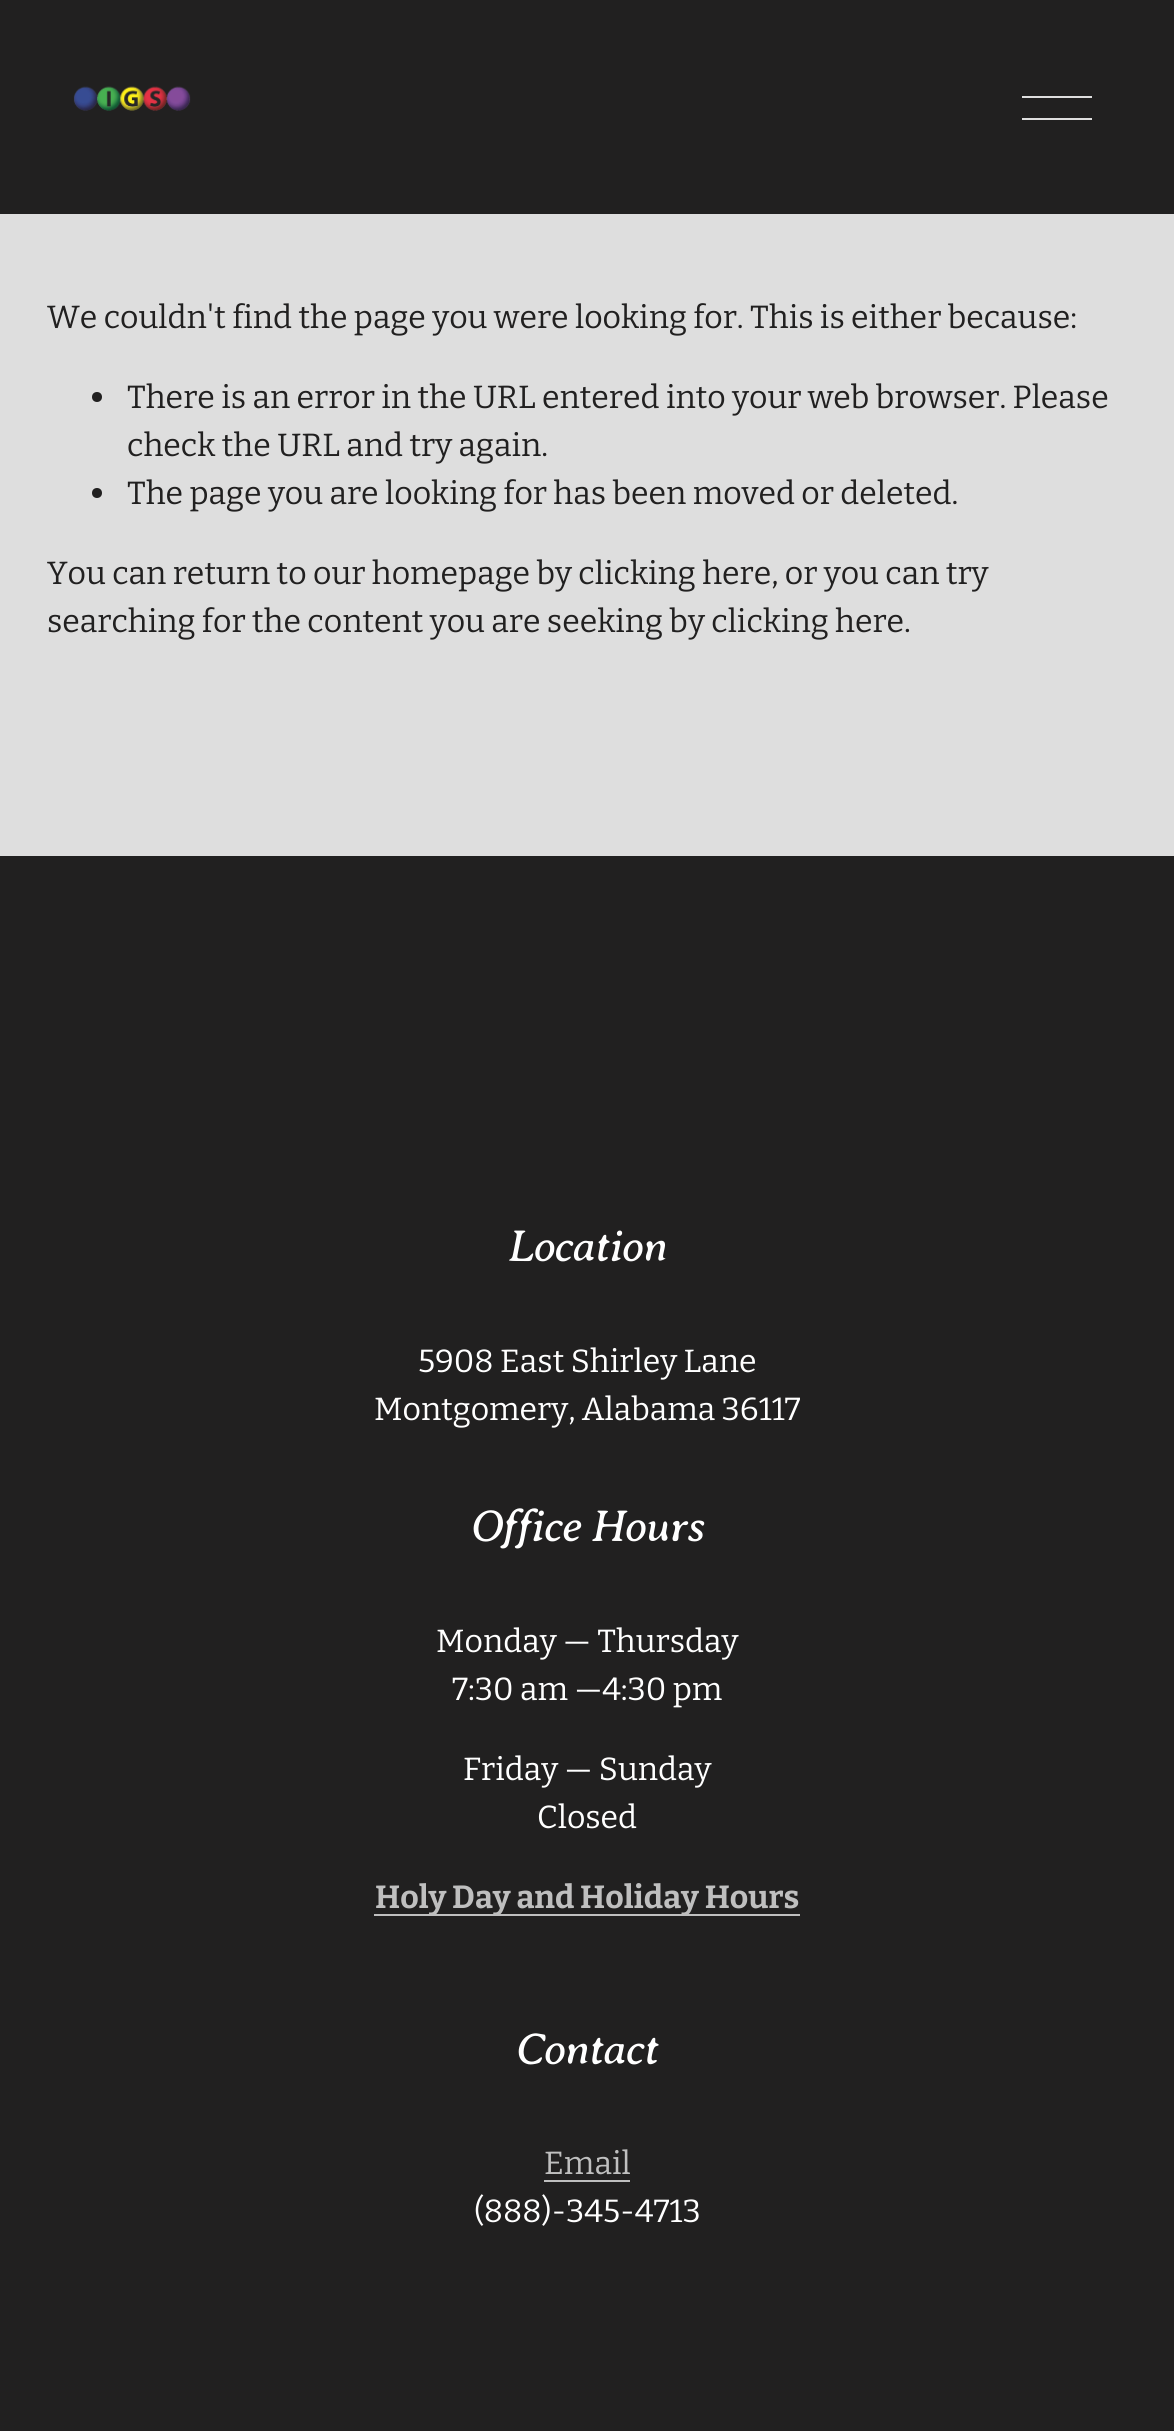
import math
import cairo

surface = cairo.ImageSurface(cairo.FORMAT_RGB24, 1174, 2431)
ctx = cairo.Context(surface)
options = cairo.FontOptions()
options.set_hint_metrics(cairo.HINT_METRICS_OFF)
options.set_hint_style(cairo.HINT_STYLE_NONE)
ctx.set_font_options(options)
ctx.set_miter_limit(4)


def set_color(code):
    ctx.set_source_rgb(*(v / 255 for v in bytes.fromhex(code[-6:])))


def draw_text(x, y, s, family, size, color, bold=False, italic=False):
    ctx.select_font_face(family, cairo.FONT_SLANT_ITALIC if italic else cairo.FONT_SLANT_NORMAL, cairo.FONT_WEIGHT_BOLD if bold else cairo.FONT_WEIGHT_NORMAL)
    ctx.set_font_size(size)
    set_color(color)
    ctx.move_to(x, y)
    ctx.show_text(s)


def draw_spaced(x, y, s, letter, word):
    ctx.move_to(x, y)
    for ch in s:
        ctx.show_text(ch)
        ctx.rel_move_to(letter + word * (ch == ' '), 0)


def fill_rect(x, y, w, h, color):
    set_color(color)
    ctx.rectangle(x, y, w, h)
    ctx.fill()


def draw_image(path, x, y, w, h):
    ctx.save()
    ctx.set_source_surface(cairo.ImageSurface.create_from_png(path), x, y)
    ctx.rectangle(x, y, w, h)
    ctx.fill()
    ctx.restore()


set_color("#dedede")
ctx.paint()
fill_rect(0, 0, 1174, 214, "#212020")
draw_image("assets/img1.png", 73, 86, 118, 25)
fill_rect(1022, 96, 70, 2, "#dedede")
fill_rect(1022, 118, 70, 2, "#dedede")
draw_text(47, 328, "We couldn't find the page you were looking for. This is either because:", "Bitter", 32, "#212020")
ctx.new_path()
ctx.arc(97, 397, 5, 0, 2 * math.pi)
ctx.fill()
draw_text(127, 408, "There is an error in the URL entered into your web browser. Please", "Bitter", 32, "#212020")
draw_text(127, 456, "check the URL and try again.", "Bitter", 32, "#212020")
ctx.new_path()
ctx.arc(97, 493, 5, 0, 2 * math.pi)
ctx.fill()
draw_text(127, 504, "The page you are looking for has been moved or deleted.", "Bitter", 32, "#212020")
draw_text(47, 584, "You can return to our homepage by clicking here, or you can try", "Bitter", 32, "#212020")
draw_text(47, 632, "searching for the content you are seeking by clicking here.", "Bitter", 32, "#212020")
fill_rect(0, 856, 1174, 1575, "#212020")
ctx.select_font_face("Averia Serif Libre", cairo.FONT_SLANT_ITALIC)
ctx.set_font_size(45)
set_color("#ffffff")
draw_spaced(508, 1261, "Location", -0.9, 0)
draw_text(418, 1372, "5908 East Shirley Lane", "Bitter", 32, "#ffffff")
draw_text(374, 1420, "Montgomery, Alabama 36117", "Bitter", 32, "#ffffff")
ctx.select_font_face("Averia Serif Libre", cairo.FONT_SLANT_ITALIC)
ctx.set_font_size(45)
draw_spaced(471, 1541, "Office Hours", -0.9, 0)
draw_text(436, 1652, "Monday — Thursday", "Bitter", 32, "#ffffff")
draw_text(452, 1700, "7:30 am —4:30 pm", "Bitter", 32, "#ffffff")
draw_text(463, 1780, "Friday — Sunday", "Bitter", 32, "#ffffff")
draw_text(537, 1828, "Closed", "Bitter", 32, "#ffffff")
fill_rect(374, 1914, 426, 2, "#bfbfbf")
draw_text(375, 1908, "Holy Day and Holiday Hours", "Bitter", 32, "#bfbfbf", bold=True)
ctx.select_font_face("Averia Serif Libre", cairo.FONT_SLANT_ITALIC)
ctx.set_font_size(45)
set_color("#ffffff")
draw_spaced(516, 2064, "Contact", -0.9, 0)
draw_text(544, 2174, "Email", "Bitter", 32, "#bfbfbf")
fill_rect(544, 2180, 86, 2, "#bfbfbf")
draw_text(474, 2222, "(888)-345-4713", "Bitter", 32, "#ffffff")
surface.write_to_png("output.png")
